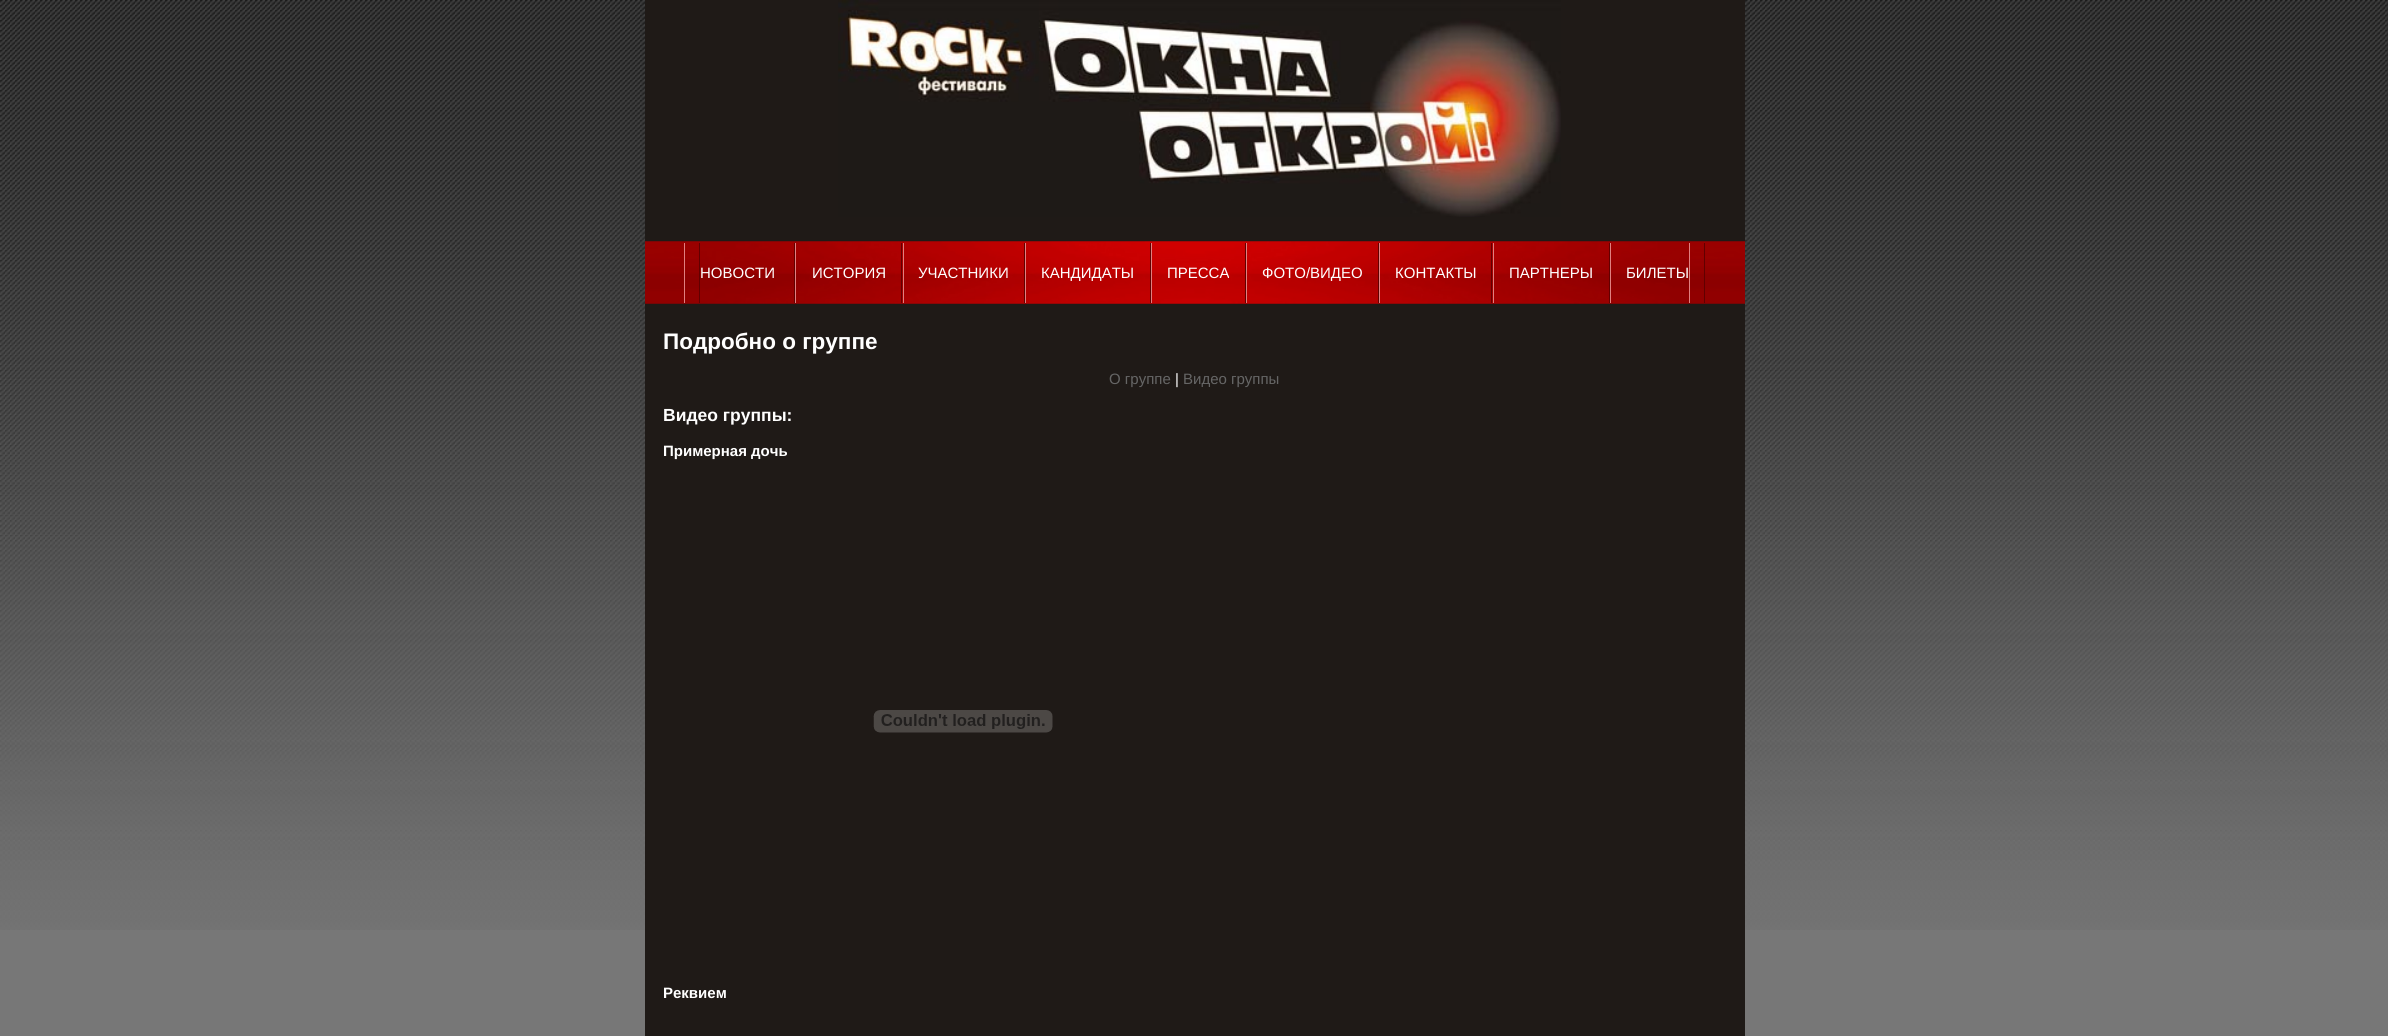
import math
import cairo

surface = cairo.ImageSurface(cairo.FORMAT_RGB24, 2388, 1036)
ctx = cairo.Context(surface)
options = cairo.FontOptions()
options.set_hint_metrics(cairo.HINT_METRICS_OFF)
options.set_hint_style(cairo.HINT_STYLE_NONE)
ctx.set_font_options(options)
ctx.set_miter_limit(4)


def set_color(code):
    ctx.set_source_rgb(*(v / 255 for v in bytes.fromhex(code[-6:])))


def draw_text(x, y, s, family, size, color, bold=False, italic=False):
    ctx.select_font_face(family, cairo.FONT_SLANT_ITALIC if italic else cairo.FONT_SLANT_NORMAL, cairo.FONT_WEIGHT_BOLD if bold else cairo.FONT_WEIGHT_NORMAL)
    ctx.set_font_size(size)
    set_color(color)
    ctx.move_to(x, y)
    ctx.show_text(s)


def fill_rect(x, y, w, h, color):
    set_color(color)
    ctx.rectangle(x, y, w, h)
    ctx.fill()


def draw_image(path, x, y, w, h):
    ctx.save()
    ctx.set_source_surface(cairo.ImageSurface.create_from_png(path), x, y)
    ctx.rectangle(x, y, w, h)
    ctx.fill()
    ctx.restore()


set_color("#777777")
ctx.paint()
draw_image("assets/img1.png", 0, 0, 2388, 930)
fill_rect(645, 0, 1100, 1036, "#1f1a17")
draw_image("assets/img2.png", 838, 0, 723, 217)
draw_image("assets/img3.png", 645, 241, 1100, 63)
draw_text(700, 278, "НОВОСТИ", "Liberation Sans", 15, "#ffffff")
fill_rect(699, 243, 1, 60, "#610000")
fill_rect(684, 243, 1, 60, "#e08080")
draw_text(812, 278, "ИСТОРИЯ", "Liberation Sans", 15, "#ffffff")
fill_rect(794, 243, 1, 60, "#610000")
fill_rect(901, 243, 1, 60, "#610000")
fill_rect(795, 243, 1, 60, "#e08080")
draw_text(918, 278, "УЧАСТНИКИ", "Liberation Sans", 15, "#ffffff")
fill_rect(1024, 243, 1, 60, "#610000")
fill_rect(903, 243, 1, 60, "#e08080")
fill_rect(1025, 243, 1, 60, "#e08080")
draw_text(1041, 278, "КАНДИДАТЫ", "Liberation Sans", 15, "#ffffff")
draw_text(1167, 278, "ПРЕССА", "Liberation Sans", 15, "#ffffff")
fill_rect(1150, 243, 1, 60, "#610000")
fill_rect(1245, 243, 1, 60, "#610000")
fill_rect(1151, 243, 1, 60, "#e08080")
fill_rect(1246, 243, 1, 60, "#e08080")
draw_text(1262, 278, "ФОТО/ВИДЕО", "Liberation Sans", 15, "#ffffff")
draw_text(1395, 278, "КОНТАКТЫ", "Liberation Sans", 15, "#ffffff")
fill_rect(1378, 243, 1, 60, "#610000")
fill_rect(1491, 243, 1, 60, "#610000")
fill_rect(1379, 243, 1, 60, "#e08080")
fill_rect(1493, 243, 1, 60, "#e08080")
draw_text(1509, 278, "ПАРТНЕРЫ", "Liberation Sans", 15, "#ffffff")
fill_rect(1609, 243, 1, 60, "#610000")
draw_text(1626, 278, "БИЛЕТЫ", "Liberation Sans", 15, "#ffffff")
fill_rect(1689, 243, 1, 60, "#e08080")
fill_rect(1704, 243, 1, 60, "#610000")
fill_rect(1610, 243, 1, 60, "#e08080")
draw_text(663, 349, "Подробно о группе", "Liberation Sans", 22.5, "#ffffff", bold=True)
draw_text(1109, 384, "О группе", "Liberation Sans", 15, "#666666")
draw_text(1175, 384, "|", "Liberation Sans", 15, "#ffffff")
draw_text(1183, 384, "Видео группы", "Liberation Sans", 15, "#666666")
draw_text(663, 421, "Видео группы:", "Liberation Sans", 17.5, "#ffffff", bold=True)
draw_text(663, 456, "Примерная дочь", "Liberation Sans", 15, "#ffffff", bold=True)
draw_image("assets/img4.png", 873, 710, 180, 23)
draw_text(663, 998, "Реквием", "Liberation Sans", 15, "#ffffff", bold=True)
surface.write_to_png("output.png")
